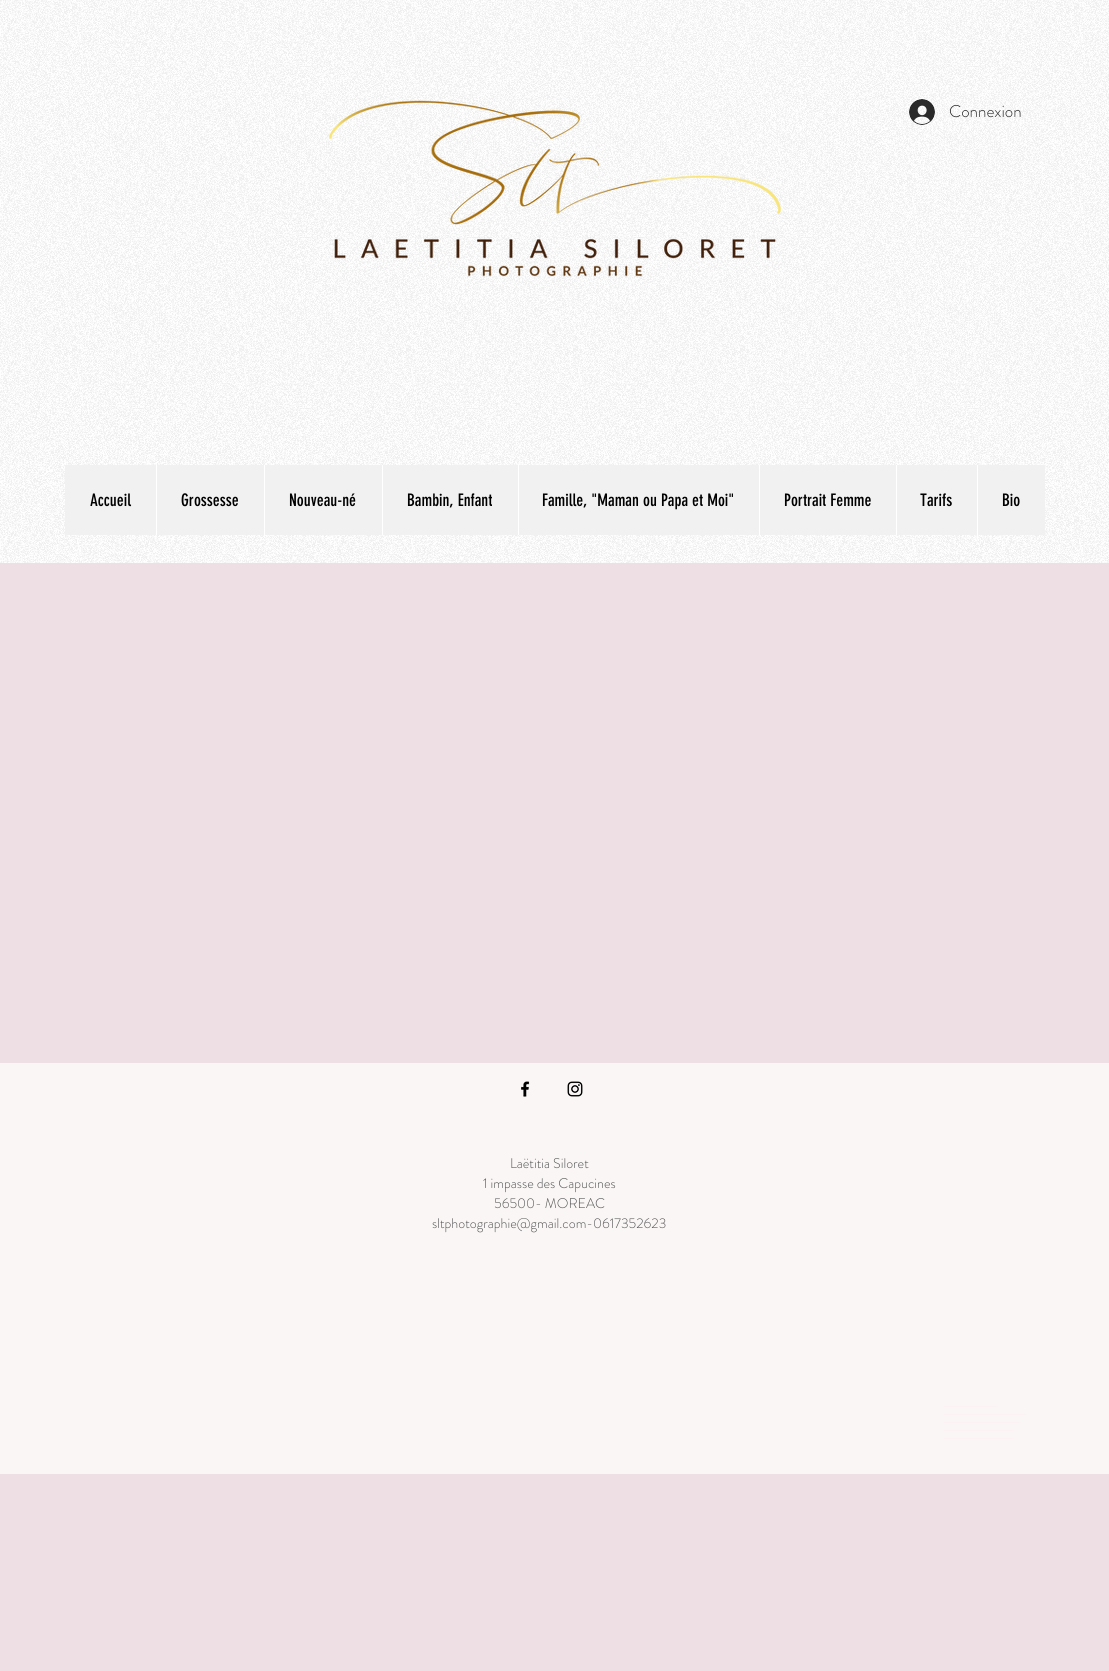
import math
import cairo

surface = cairo.ImageSurface(cairo.FORMAT_RGB24, 1109, 1671)
ctx = cairo.Context(surface)
options = cairo.FontOptions()
options.set_hint_metrics(cairo.HINT_METRICS_OFF)
options.set_hint_style(cairo.HINT_STYLE_NONE)
ctx.set_font_options(options)
ctx.set_miter_limit(4)


def set_color(code):
    ctx.set_source_rgb(*(v / 255 for v in bytes.fromhex(code[-6:])))


def draw_text(x, y, s, family, size, color, bold=False, italic=False):
    ctx.select_font_face(family, cairo.FONT_SLANT_ITALIC if italic else cairo.FONT_SLANT_NORMAL, cairo.FONT_WEIGHT_BOLD if bold else cairo.FONT_WEIGHT_NORMAL)
    ctx.set_font_size(size)
    set_color(color)
    ctx.move_to(x, y)
    ctx.show_text(s)


def fill_rect(x, y, w, h, color):
    set_color(color)
    ctx.rectangle(x, y, w, h)
    ctx.fill()


def draw_image(path, x, y, w, h):
    ctx.save()
    ctx.set_source_surface(cairo.ImageSurface.create_from_png(path), x, y)
    ctx.rectangle(x, y, w, h)
    ctx.fill()
    ctx.restore()


set_color("#eddfe4")
ctx.paint()
fill_rect(0, 0, 1109, 563, "#ffffff")
draw_image("assets/img1.png", 0, 0, 1109, 563)
draw_image("assets/img2.png", 328, 100, 454, 177)
draw_image("assets/img3.png", 909, 99, 26, 26)
draw_text(949, 117, "Connexion", "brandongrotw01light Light", 17, "#2a2a2a")
fill_rect(65, 465, 980, 70, "#f1f1f1")
draw_text(90, 506, "Accueil", "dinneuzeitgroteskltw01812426", 17, "#000000")
fill_rect(156, 465, 1, 70, "#ffffff")
draw_text(181, 506, "Grossesse", "dinneuzeitgroteskltw01812426", 17, "#000000")
fill_rect(264, 465, 1, 70, "#ffffff")
draw_text(289, 506, "Nouveau-né", "dinneuzeitgroteskltw01812426", 17, "#000000")
fill_rect(382, 465, 1, 70, "#ffffff")
draw_text(407, 506, "Bambin, Enfant", "dinneuzeitgroteskltw01812426", 17, "#000000")
fill_rect(518, 465, 1, 70, "#ffffff")
draw_text(542, 506, "Famille, \"Maman ou Papa et Moi\"", "dinneuzeitgroteskltw01812426", 17, "#000000")
fill_rect(759, 465, 1, 70, "#ffffff")
draw_text(784, 506, "Portrait Femme", "dinneuzeitgroteskltw01812426", 17, "#000000")
fill_rect(896, 465, 1, 70, "#ffffff")
draw_text(920, 506, "Tarifs", "dinneuzeitgroteskltw01812426", 17, "#000000")
fill_rect(977, 465, 1, 70, "#ffffff")
draw_text(1002, 506, "Bio", "dinneuzeitgroteskltw01812426", 17, "#000000")
fill_rect(0, 1063, 1109, 411, "#faf6f6")
draw_image("assets/img4.png", 521, 1081, 9, 16)
draw_image("assets/img5.png", 567, 1081, 16, 16)
draw_text(510, 1168, "Laëtitia Siloret", "brandongrotw01light Light", 14, "#555555")
draw_text(483, 1188, "1 impasse des Capucines", "brandongrotw01light Light", 14, "#555555")
draw_text(494, 1208, "56500- MOREAC", "brandongrotw01light Light", 14, "#555555")
draw_text(432, 1228, "sltphotographie@gmail.com-0617352623", "brandongrotw01light Light", 14, "#555555")
fill_rect(944, 1406, 53, 1, "#fbf3f3")
fill_rect(944, 1414, 82, 1, "#fbf3f3")
fill_rect(944, 1422, 76, 1, "#fbf3f3")
fill_rect(944, 1430, 69, 1, "#fbf3f3")
fill_rect(944, 1438, 69, 1, "#fbf3f3")
surface.write_to_png("output.png")
